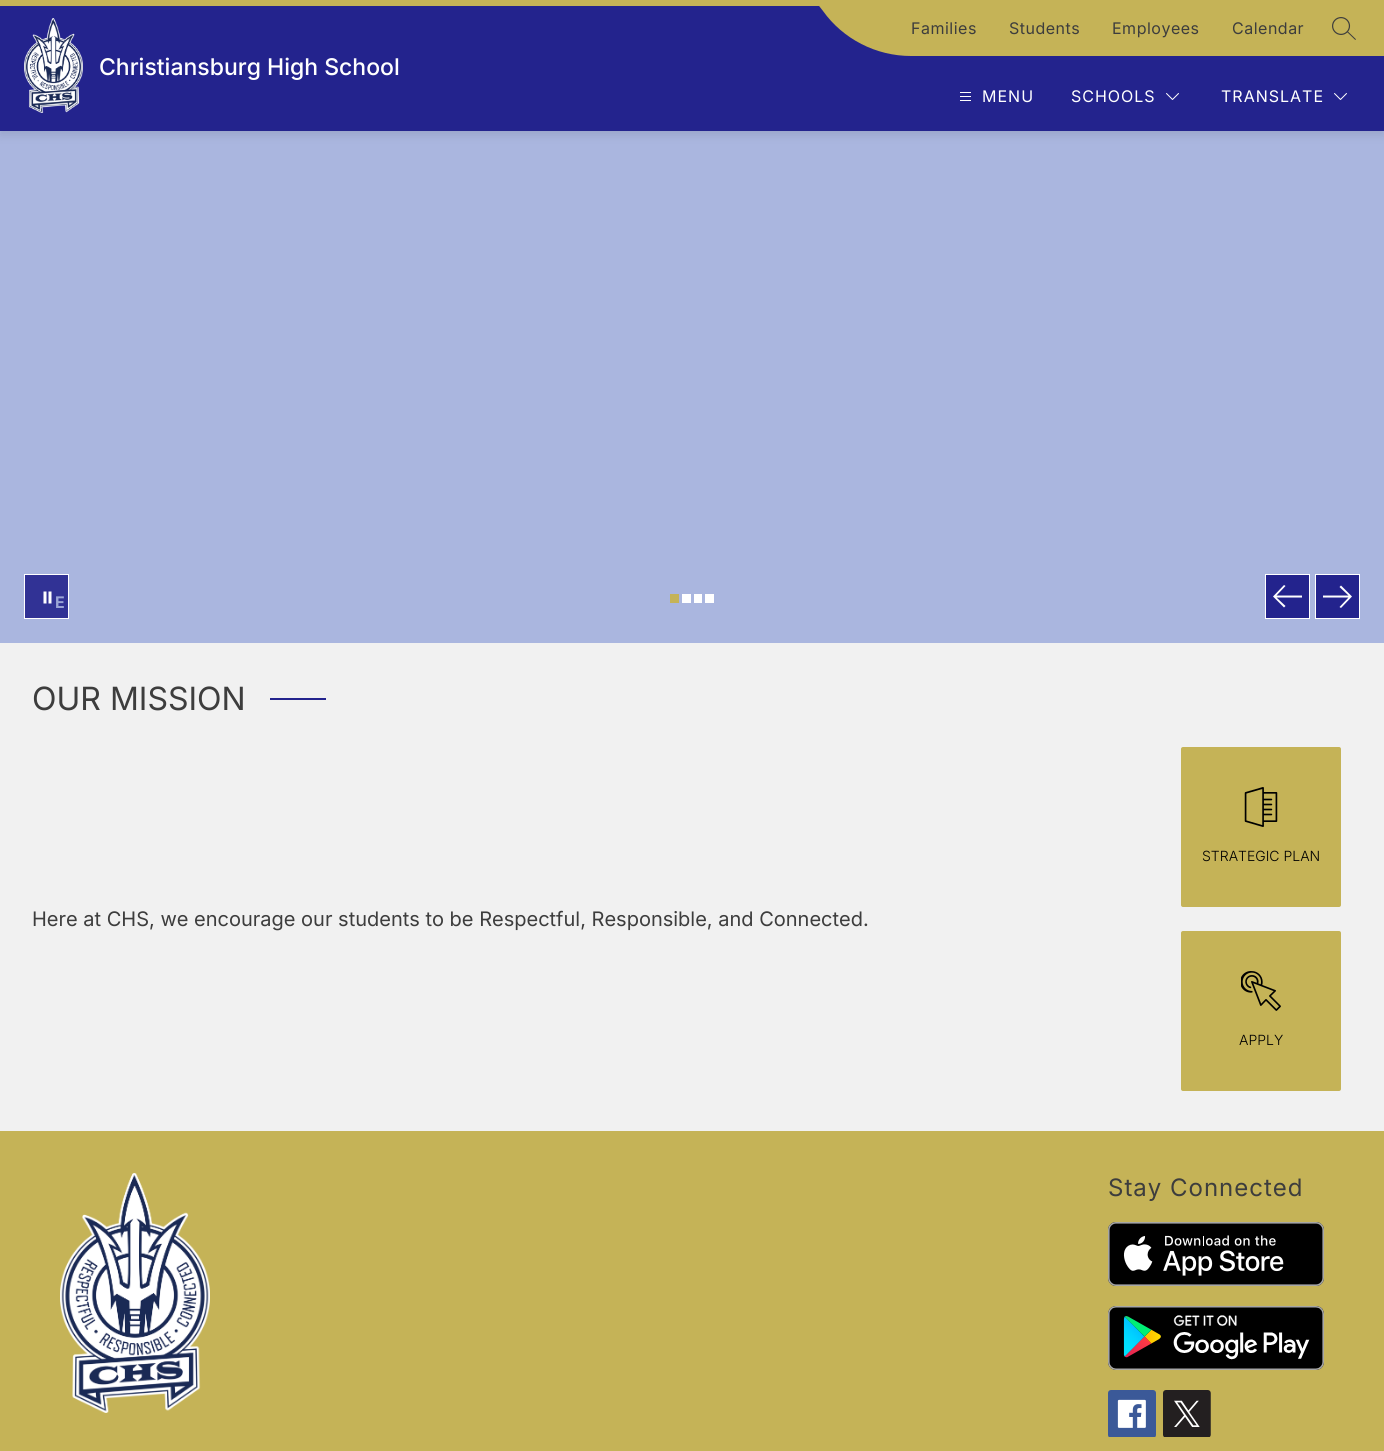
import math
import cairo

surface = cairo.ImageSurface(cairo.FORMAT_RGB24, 1384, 1451)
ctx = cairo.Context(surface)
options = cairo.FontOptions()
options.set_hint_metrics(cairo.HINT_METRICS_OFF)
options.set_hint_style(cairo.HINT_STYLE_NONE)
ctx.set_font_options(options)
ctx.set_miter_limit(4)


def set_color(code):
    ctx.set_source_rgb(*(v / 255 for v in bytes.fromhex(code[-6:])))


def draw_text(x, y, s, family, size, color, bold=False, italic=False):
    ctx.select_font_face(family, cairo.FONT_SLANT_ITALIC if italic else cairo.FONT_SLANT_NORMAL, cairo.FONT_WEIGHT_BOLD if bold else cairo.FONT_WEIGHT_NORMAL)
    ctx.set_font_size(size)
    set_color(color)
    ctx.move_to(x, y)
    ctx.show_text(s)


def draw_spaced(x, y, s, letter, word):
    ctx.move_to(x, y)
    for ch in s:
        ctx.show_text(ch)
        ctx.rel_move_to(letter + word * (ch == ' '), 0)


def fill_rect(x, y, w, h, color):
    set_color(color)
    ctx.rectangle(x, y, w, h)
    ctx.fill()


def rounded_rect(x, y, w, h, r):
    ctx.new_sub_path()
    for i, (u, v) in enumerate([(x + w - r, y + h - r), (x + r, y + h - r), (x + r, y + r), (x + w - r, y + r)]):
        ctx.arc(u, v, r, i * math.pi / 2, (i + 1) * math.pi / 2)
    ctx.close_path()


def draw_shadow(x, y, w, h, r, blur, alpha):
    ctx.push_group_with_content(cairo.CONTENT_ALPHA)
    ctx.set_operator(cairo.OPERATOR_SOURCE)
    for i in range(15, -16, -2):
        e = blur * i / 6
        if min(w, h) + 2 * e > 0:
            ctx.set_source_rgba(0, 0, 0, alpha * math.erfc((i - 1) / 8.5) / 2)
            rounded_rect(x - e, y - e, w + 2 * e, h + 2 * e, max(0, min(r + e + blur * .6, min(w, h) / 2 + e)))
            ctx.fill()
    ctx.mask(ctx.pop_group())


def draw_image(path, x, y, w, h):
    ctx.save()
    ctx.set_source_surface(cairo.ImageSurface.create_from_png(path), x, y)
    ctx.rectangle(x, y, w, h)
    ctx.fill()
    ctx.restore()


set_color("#c5b357")
ctx.paint()
fill_rect(0, 131, 1384, 512, "#aab6df")
set_color("#000000")
draw_shadow(0, 4, 1384, 131, 0, 5, 0.1)
fill_rect(0, 6, 1384, 125, "#23238d")
fill_rect(0, 0, 820, 6, "#c5b357")
draw_image("assets/img1.png", 24, 18, 59, 95)
draw_text(99, 75, "Christiansburg High School", "Inter Medium", 23, "#ffffff")
fill_rect(913, 0, 471, 56, "#c5b357")
ctx.new_path()
ctx.move_to(911, 56)
ctx.line_to(913, 56)
ctx.line_to(913, 0)
ctx.line_to(817, 0)
ctx.curve_to(816, 0, 816, 1, 816, 2)
ctx.line_to(823, 11)
ctx.curve_to(843, 39, 876, 56, 911, 56)
ctx.close_path()
ctx.fill()
ctx.select_font_face("Inter")
ctx.set_font_size(16)
set_color("#3d3d3d")
draw_spaced(911, 34, "Families", 0.5, 0)
draw_spaced(1009, 34, "Students", 0.5, 0)
draw_spaced(1112, 34, "Employees", 0.5, 0)
draw_spaced(1232, 34, "Calendar", 0.5, 0)
draw_image("assets/img2.png", 1332, 17, 24, 23)
draw_image("assets/img3.png", 960, 92, 11, 9)
set_color("#ffffff")
draw_spaced(982, 102, "MENU", 1, 0)
draw_spaced(1071, 102, "SCHOOLS", 1, 0)
draw_image("assets/img4.png", 1166, 93, 13, 7)
draw_spaced(1221, 102, "TRANSLATE", 1, 0)
draw_image("assets/img4.png", 1334, 93, 13, 7)
fill_rect(25, 575, 43, 43, "#313295")
ctx.new_path()
ctx.move_to(24.5, 574.5)
ctx.line_to(68.5, 574.5)
ctx.line_to(68.5, 618.5)
ctx.line_to(24.5, 618.5)
ctx.close_path()
set_color("#ffffff")
ctx.set_line_width(1)
ctx.stroke()
ctx.set_fill_rule(cairo.FILL_RULE_EVEN_ODD)
ctx.new_path()
ctx.move_to(46.5, 591.5)
ctx.line_to(43.5, 591.5)
ctx.line_to(43.5, 603.5)
ctx.line_to(46.5, 603.5)
ctx.close_path()
ctx.move_to(51.5, 591.5)
ctx.line_to(48.5, 591.5)
ctx.line_to(48.5, 603.5)
ctx.line_to(51.5, 603.5)
ctx.close_path()
ctx.fill()
fill_rect(670, 594, 9, 9, "#c5b357")
fill_rect(682, 594, 9, 9, "#ffffff")
fill_rect(694, 594, 8, 9, "#ffffff")
fill_rect(705, 594, 9, 9, "#ffffff")
fill_rect(1266, 575, 43, 43, "#23238d")
ctx.new_path()
ctx.move_to(1309.5, 618.5)
ctx.line_to(1265.5, 618.5)
ctx.line_to(1265.5, 574.5)
ctx.line_to(1309.5, 574.5)
ctx.close_path()
set_color("#ffffff")
ctx.stroke()
ctx.set_fill_rule(cairo.FILL_RULE_WINDING)
ctx.new_path()
ctx.move_to(1284, 607.5)
ctx.line_to(1273, 596.5)
ctx.line_to(1284, 585)
ctx.line_to(1285.5, 586)
ctx.line_to(1276.5, 595.5)
ctx.line_to(1302, 595.5)
ctx.line_to(1302, 597.5)
ctx.line_to(1276.5, 597.5)
ctx.line_to(1285.5, 606)
ctx.close_path()
ctx.fill()
fill_rect(1316, 575, 43, 43, "#23238d")
ctx.new_path()
ctx.move_to(1315.5, 574.5)
ctx.line_to(1359.5, 574.5)
ctx.line_to(1359.5, 618.5)
ctx.line_to(1315.5, 618.5)
ctx.close_path()
set_color("#ffffff")
ctx.stroke()
ctx.new_path()
ctx.move_to(1341, 585.5)
ctx.line_to(1352, 596.5)
ctx.line_to(1341, 608)
ctx.line_to(1339.5, 607)
ctx.line_to(1348.5, 597.5)
ctx.line_to(1323, 597.5)
ctx.line_to(1323, 595.5)
ctx.line_to(1348.5, 595.5)
ctx.line_to(1339.5, 587)
ctx.close_path()
ctx.fill()
draw_text(55, 608, "E", "Inter", 16, "#9ba5d6", bold=True)
fill_rect(0, 643, 1384, 488, "#f1f1f1")
draw_text(32, 710, "OUR MISSION", "Inter", 32, "#3d3d3d")
fill_rect(270, 698, 56, 2, "#23238d")
draw_text(32, 926, "Here at CHS, we encourage our students to be Respectful, Responsible, and Connected.", "Inter", 20, "#3d3d3d")
set_color("#c5b357")
rounded_rect(1181, 747, 160, 160, 2)
ctx.fill()
draw_image("assets/img5.png", 1244, 787, 34, 40)
draw_text(1202, 861, "STRATEGIC PLAN", "Inter Light", 14, "#000000")
set_color("#c5b357")
rounded_rect(1181, 931, 160, 160, 2)
ctx.fill()
draw_image("assets/img6.png", 1241, 971, 40, 40)
draw_text(1239, 1045, "APPLY", "Inter Light", 14, "#000000")
draw_image("assets/img7.png", 60, 1173, 150, 240)
ctx.select_font_face("Inter")
ctx.set_font_size(24)
set_color("#3d3d3d")
draw_spaced(1108, 1196, "Stay Connected", 1, 0)
draw_image("assets/img8.png", 1108, 1222, 216, 64)
draw_image("assets/img9.png", 1108, 1306, 216, 64)
draw_image("assets/img10.png", 1108, 1390, 48, 47)
draw_image("assets/img11.png", 1163, 1390, 48, 47)
surface.write_to_png("output.png")
